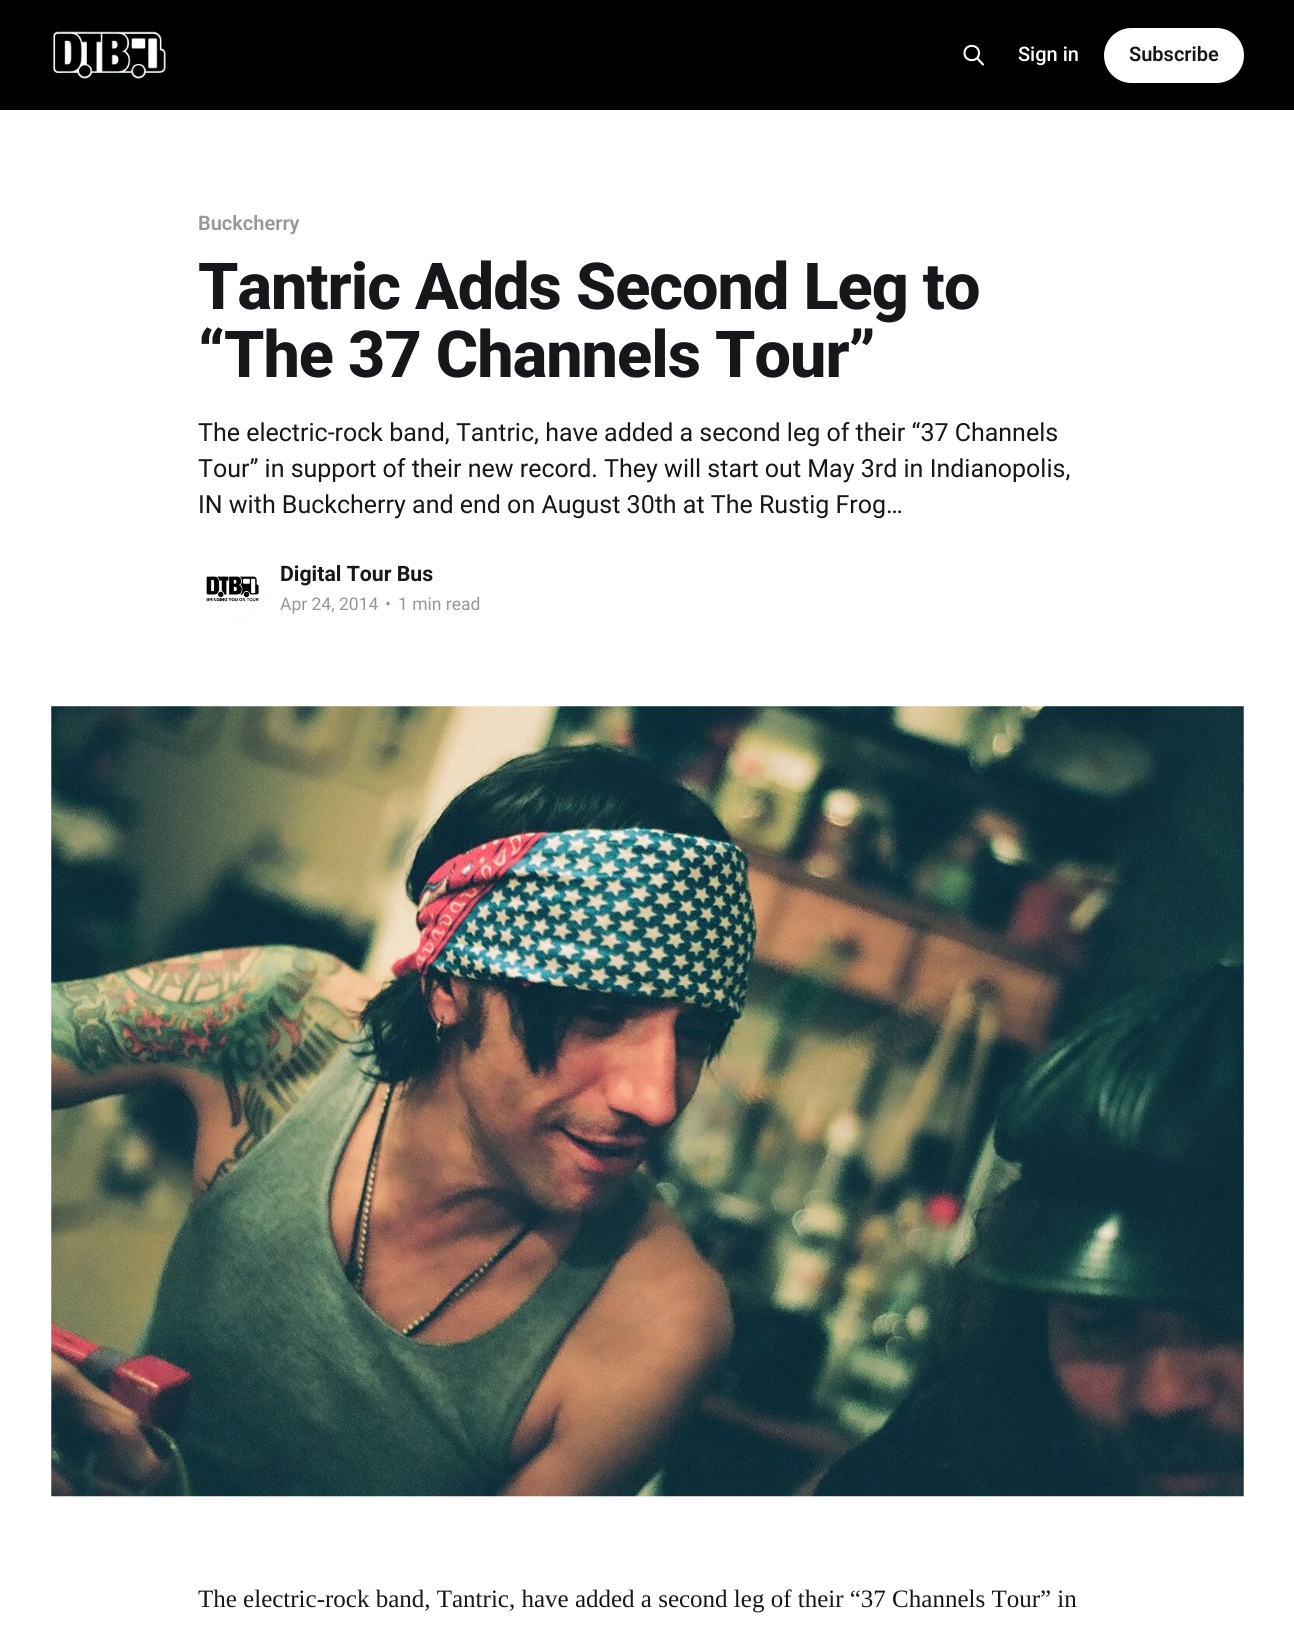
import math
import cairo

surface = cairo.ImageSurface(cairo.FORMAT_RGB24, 1294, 1628)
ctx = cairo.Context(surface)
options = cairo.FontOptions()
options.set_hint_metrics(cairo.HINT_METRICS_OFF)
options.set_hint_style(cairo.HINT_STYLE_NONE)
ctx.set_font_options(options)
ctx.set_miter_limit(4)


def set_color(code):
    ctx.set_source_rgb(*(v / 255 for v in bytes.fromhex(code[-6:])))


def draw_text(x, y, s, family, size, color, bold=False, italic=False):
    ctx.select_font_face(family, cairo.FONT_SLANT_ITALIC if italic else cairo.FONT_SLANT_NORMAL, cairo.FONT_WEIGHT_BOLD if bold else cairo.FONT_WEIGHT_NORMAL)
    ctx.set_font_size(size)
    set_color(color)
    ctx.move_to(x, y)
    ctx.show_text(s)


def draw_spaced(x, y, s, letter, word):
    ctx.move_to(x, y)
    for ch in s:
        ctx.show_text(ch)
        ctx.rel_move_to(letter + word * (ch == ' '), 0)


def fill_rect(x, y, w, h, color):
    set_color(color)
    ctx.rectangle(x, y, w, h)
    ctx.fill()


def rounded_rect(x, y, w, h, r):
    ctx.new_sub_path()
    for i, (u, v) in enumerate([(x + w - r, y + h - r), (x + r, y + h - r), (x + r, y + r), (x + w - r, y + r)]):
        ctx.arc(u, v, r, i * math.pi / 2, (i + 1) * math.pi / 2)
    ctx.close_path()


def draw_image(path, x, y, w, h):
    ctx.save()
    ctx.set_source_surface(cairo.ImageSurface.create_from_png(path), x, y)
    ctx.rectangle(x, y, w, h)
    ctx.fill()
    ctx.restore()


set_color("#ffffff")
ctx.paint()
fill_rect(0, 0, 1294, 110, "#000000")
draw_image("assets/img1.png", 52, 31, 114, 48)
ctx.new_path()
ctx.move_to(983, 64.5)
ctx.line_to(977, 58)
ctx.move_to(979, 53)
ctx.curve_to(979, 62.5, 964.5, 62.5, 964.5, 53)
ctx.curve_to(964.5, 43.5, 979, 43.5, 979, 53)
ctx.close_path()
set_color("#ffffff")
ctx.set_line_width(2.1)
ctx.set_line_cap(cairo.LINE_CAP_ROUND)
ctx.set_line_join(cairo.LINE_JOIN_ROUND)
ctx.stroke()
draw_text(1018, 61, "Sign in", "Roboto Medium", 20, "#ffffff")
rounded_rect(1104, 28, 140, 55, 27.5)
ctx.fill()
draw_text(1129, 61, "Subscribe", "Roboto SemiBold", 20, "#15171a")
draw_text(198, 230, "Buckcherry", "Roboto SemiBold", 20, "#979797")
ctx.select_font_face("Roboto ExtraBold")
ctx.set_font_size(64.75)
set_color("#15171a")
draw_spaced(198, 309, "Tantric Adds Second Leg to", -1, 0)
draw_spaced(198, 377, "“The 37 Channels Tour”", -1, 0)
draw_text(198, 441, "The electric-rock band, Tantric, have added a second leg of their “37 Channels", "Roboto", 25, "#15171a")
draw_text(198, 477, "Tour” in support of their new record. They will start out May 3rd in Indianopolis,", "Roboto", 25, "#15171a")
draw_text(198, 513, "IN with Buckcherry and end on August 30th at The Rustig Frog…", "Roboto", 25, "#15171a")
set_color("#e1e1e1")
ctx.new_path()
ctx.arc(233, 589, 33.5, 0, 2 * math.pi)
ctx.fill_preserve()
set_color("#ffffff")
ctx.set_line_width(3)
ctx.set_line_cap(cairo.LINE_CAP_BUTT)
ctx.set_line_join(cairo.LINE_JOIN_MITER)
ctx.stroke()
ctx.arc(232.5, 588.5, 32.5, 0, 2 * math.pi)
ctx.fill()
draw_image("assets/img2.png", 206, 576, 57, 45)
draw_text(280, 581, "Digital Tour Bus", "Roboto", 21.25, "#15171a", bold=True)
draw_text(280, 610, "Apr 24, 2014", "Roboto", 17.5, "#979797")
draw_text(385, 610, "•", "Roboto", 17.5, "#979797")
draw_text(398, 610, "1 min read", "Roboto", 17.5, "#979797")
draw_image("assets/img3.png", 51, 706, 1193, 791)
draw_text(198, 1607, "The electric-rock band, Tantric, have added a second leg of their “37 Channels Tour” in", "Liberation Serif", 25, "#15171a")
surface.write_to_png("output.png")
